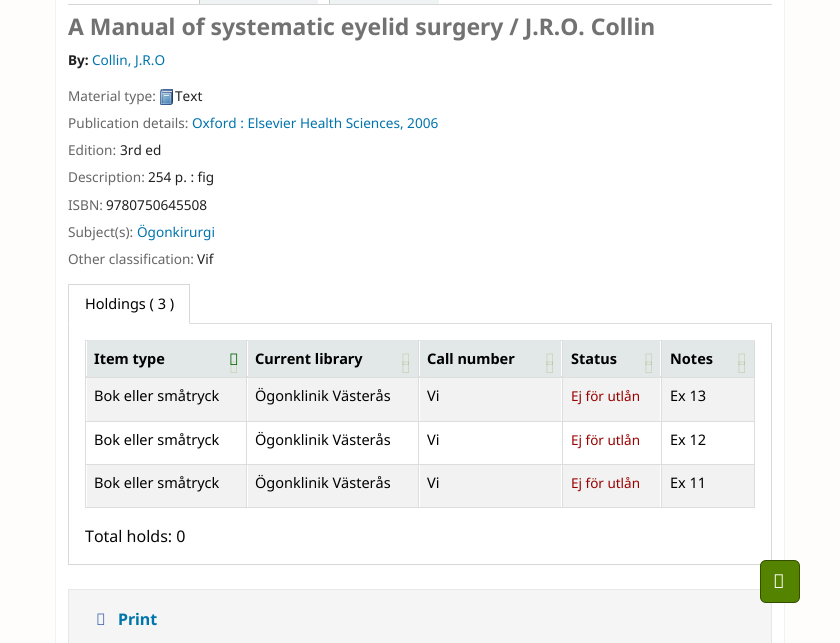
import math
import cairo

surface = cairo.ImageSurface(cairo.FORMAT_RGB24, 840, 643)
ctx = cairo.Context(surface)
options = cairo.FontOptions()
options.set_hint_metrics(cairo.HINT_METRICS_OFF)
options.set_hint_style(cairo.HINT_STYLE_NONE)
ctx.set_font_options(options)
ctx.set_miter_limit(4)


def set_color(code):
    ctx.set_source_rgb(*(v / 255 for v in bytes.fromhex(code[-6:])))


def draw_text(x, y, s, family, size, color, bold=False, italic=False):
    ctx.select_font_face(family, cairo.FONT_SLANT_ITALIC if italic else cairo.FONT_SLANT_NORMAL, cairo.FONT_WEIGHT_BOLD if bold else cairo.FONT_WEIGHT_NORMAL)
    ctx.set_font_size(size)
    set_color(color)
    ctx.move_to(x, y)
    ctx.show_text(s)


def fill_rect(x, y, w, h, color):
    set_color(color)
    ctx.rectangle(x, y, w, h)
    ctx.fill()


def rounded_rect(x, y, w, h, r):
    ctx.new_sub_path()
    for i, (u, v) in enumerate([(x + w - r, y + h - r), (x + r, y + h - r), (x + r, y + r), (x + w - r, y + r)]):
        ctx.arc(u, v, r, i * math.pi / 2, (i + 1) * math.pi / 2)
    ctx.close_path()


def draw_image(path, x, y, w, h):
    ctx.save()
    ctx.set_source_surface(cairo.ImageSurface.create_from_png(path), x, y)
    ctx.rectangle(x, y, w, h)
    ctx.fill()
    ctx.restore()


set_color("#fffcfc")
ctx.paint()
set_color("#ffffff")
ctx.rectangle(55.5, -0.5, 729, 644)
ctx.fill_preserve()
set_color("#f0f3f3")
ctx.set_line_width(1)
ctx.stroke()
fill_rect(68, 4, 704, 1, "#d6d6d6")
fill_rect(200, 0, 118, 4, "#f0f3f3")
fill_rect(199, 0, 1, 4, "#c9c9c9")
fill_rect(330, 0, 109, 4, "#f0f3f3")
fill_rect(329, 0, 1, 4, "#c9c9c9")
draw_text(68, 35, "A Manual of systematic eyelid surgery / J.R.O. Collin", "Noto Sans", 22.9, "#727272", bold=True)
draw_text(68, 65, "By:", "Noto Sans", 13.6, "#202020", bold=True)
draw_text(92, 65, "Collin, J.R.O", "Noto Sans", 13.6, "#0074ad")
draw_text(68, 101, "Material type:", "Noto Sans", 13.6, "#666666")
draw_image("assets/img1.png", 160, 89, 13, 16)
draw_text(175, 101, "Text", "Noto Sans", 13.6, "#202020")
draw_text(68, 128, "Publication details:", "Noto Sans", 13.6, "#666666")
draw_text(192, 128, "Oxford : Elsevier Health Sciences, 2006", "Noto Sans", 13.6, "#0074ad")
draw_text(68, 155, "Edition:", "Noto Sans", 13.6, "#666666")
draw_text(120, 155, "3rd ed", "Noto Sans", 13.6, "#202020")
draw_text(68, 182, "Description:", "Noto Sans", 13.6, "#666666")
draw_text(148, 182, "254 p. : fig", "Noto Sans", 13.6, "#202020")
draw_text(68, 210, "ISBN:", "Noto Sans", 13.6, "#666666")
draw_text(106, 210, "9780750645508", "Noto Sans", 13.6, "#202020")
draw_text(68, 237, "Subject(s):", "Noto Sans", 13.6, "#666666")
draw_text(137, 237, "Ögonkirurgi", "Noto Sans", 13.6, "#0074ad")
draw_text(68, 264, "Other classification:", "Noto Sans", 13.6, "#666666")
draw_text(197, 264, "Vif", "Noto Sans", 13.6, "#202020")
fill_rect(190, 323, 582, 1, "#dddddd")
fill_rect(68, 284, 122, 1, "#d8d8d8")
ctx.new_path()
ctx.move_to(190, 284)
ctx.line_to(190, 324)
ctx.line_to(189, 323)
ctx.line_to(189, 285)
ctx.close_path()
ctx.fill()
ctx.new_path()
ctx.move_to(68, 324)
ctx.line_to(68, 284)
ctx.line_to(69, 285)
ctx.line_to(69, 323)
ctx.close_path()
ctx.fill()
draw_text(85, 309, "Holdings ( 3 )", "Noto Sans", 14.5, "#000000")
fill_rect(771, 324, 1, 241, "#d8d8d8")
fill_rect(68, 564, 693, 1, "#d8d8d8")
fill_rect(68, 324, 1, 241, "#d8d8d8")
fill_rect(85, 340, 576, 1, "#dddddd")
fill_rect(85, 376, 576, 1, "#dddddd")
fill_rect(87, 340, 159, 37, "#e2e8e8")
draw_text(94, 364, "Item type", "Noto Sans", 14.5, "#000000", bold=True)
draw_image("assets/img2.png", 230, 353, 8, 12)
draw_image("assets/img3.png", 230, 361, 7, 12)
fill_rect(248, 340, 170, 37, "#e2e8e8")
draw_text(255, 364, "Current library", "Noto Sans", 14.5, "#000000", bold=True)
draw_image("assets/img4.png", 402, 353, 7, 12)
draw_image("assets/img5.png", 402, 361, 7, 12)
fill_rect(420, 340, 141, 37, "#e2e8e8")
draw_text(427, 364, "Call number", "Noto Sans", 14.5, "#000000", bold=True)
draw_image("assets/img4.png", 546, 353, 7, 12)
draw_image("assets/img5.png", 546, 361, 7, 12)
fill_rect(563, 340, 97, 37, "#e2e8e8")
draw_text(571, 364, "Status", "Noto Sans", 14.5, "#000000", bold=True)
draw_image("assets/img4.png", 645, 353, 7, 12)
draw_image("assets/img5.png", 645, 361, 7, 12)
fill_rect(662, 340, 92, 37, "#e2e8e8")
draw_text(670, 364, "Notes", "Noto Sans", 14.5, "#000000", bold=True)
draw_image("assets/img4.png", 738, 353, 7, 12)
draw_image("assets/img5.png", 738, 361, 7, 12)
fill_rect(85, 377, 670, 1, "#dddddd")
fill_rect(87, 378, 159, 43, "#f2f2f2")
draw_text(94, 401, "Bok eller småtryck", "Noto Sans", 14.5, "#000000")
fill_rect(248, 378, 170, 43, "#f2f2f2")
draw_text(255, 401, "Ögonklinik Västerås", "Noto Sans", 14.5, "#000000")
fill_rect(420, 378, 141, 43, "#f2f2f2")
draw_text(427, 401, "Vi", "Noto Sans", 14.5, "#000000")
fill_rect(563, 378, 97, 43, "#f2f2f2")
draw_text(571, 401, "Ej för utlån", "Noto Sans", 13.5, "#990000")
fill_rect(662, 378, 92, 43, "#f2f2f2")
draw_text(670, 401, "Ex 13", "Noto Sans", 14.5, "#000000")
fill_rect(85, 421, 670, 1, "#dddddd")
draw_text(94, 445, "Bok eller småtryck", "Noto Sans", 14.5, "#000000")
draw_text(255, 445, "Ögonklinik Västerås", "Noto Sans", 14.5, "#000000")
draw_text(427, 445, "Vi", "Noto Sans", 14.5, "#000000")
draw_text(571, 445, "Ej för utlån", "Noto Sans", 13.5, "#990000")
draw_text(670, 445, "Ex 12", "Noto Sans", 14.5, "#000000")
fill_rect(85, 464, 670, 1, "#dddddd")
fill_rect(85, 507, 670, 1, "#dddddd")
fill_rect(87, 465, 159, 42, "#f2f2f2")
fill_rect(85, 340, 1, 168, "#dddddd")
draw_text(94, 488, "Bok eller småtryck", "Noto Sans", 14.5, "#000000")
fill_rect(248, 465, 170, 42, "#f2f2f2")
fill_rect(246, 340, 1, 168, "#dddddd")
draw_text(255, 488, "Ögonklinik Västerås", "Noto Sans", 14.5, "#000000")
fill_rect(420, 465, 141, 42, "#f2f2f2")
fill_rect(418, 340, 1, 168, "#dddddd")
draw_text(427, 488, "Vi", "Noto Sans", 14.5, "#000000")
fill_rect(563, 465, 97, 42, "#f2f2f2")
fill_rect(562, 340, 1, 168, "#dddddd")
draw_text(571, 488, "Ej för utlån", "Noto Sans", 13.5, "#990000")
fill_rect(662, 465, 92, 42, "#f2f2f2")
fill_rect(754, 340, 1, 168, "#dddddd")
fill_rect(661, 340, 1, 168, "#dddddd")
draw_text(670, 488, "Ex 11", "Noto Sans", 14.5, "#000000")
draw_text(85, 542, "Total holds: 0", "Noto Sans", 16, "#070707")
set_color("#f5f5f5")
ctx.rectangle(68.5, 589.5, 703, 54)
ctx.fill_preserve()
set_color("#e8e8e8")
ctx.stroke()
draw_image("assets/img6.png", 97, 613, 8, 12)
draw_text(118, 625, "Print", "Noto Sans", 16, "#0074ad", bold=True)
set_color("#548300")
rounded_rect(760.5, 560.5, 39, 42, 5.5)
ctx.fill_preserve()
set_color("#335000")
ctx.stroke()
draw_image("assets/img7.png", 774, 574, 9, 14)
surface.write_to_png("output.png")
